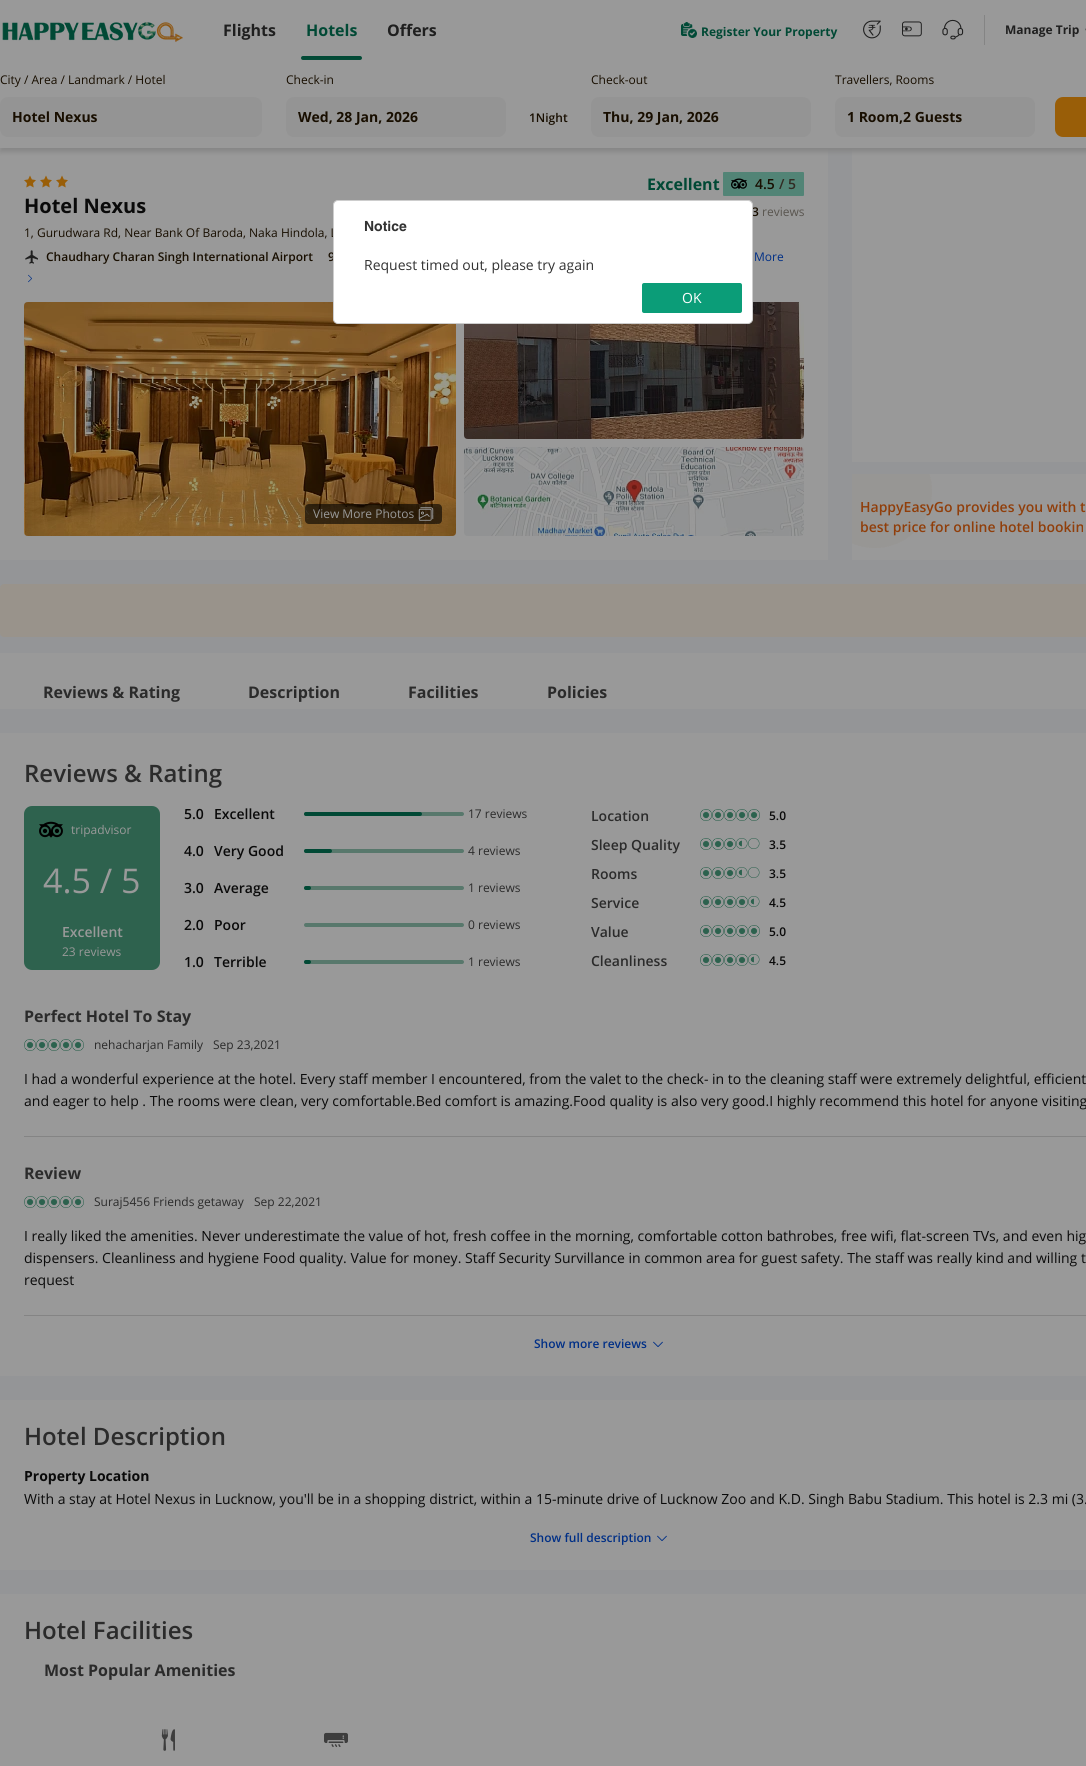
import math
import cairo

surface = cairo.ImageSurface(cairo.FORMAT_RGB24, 1086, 1766)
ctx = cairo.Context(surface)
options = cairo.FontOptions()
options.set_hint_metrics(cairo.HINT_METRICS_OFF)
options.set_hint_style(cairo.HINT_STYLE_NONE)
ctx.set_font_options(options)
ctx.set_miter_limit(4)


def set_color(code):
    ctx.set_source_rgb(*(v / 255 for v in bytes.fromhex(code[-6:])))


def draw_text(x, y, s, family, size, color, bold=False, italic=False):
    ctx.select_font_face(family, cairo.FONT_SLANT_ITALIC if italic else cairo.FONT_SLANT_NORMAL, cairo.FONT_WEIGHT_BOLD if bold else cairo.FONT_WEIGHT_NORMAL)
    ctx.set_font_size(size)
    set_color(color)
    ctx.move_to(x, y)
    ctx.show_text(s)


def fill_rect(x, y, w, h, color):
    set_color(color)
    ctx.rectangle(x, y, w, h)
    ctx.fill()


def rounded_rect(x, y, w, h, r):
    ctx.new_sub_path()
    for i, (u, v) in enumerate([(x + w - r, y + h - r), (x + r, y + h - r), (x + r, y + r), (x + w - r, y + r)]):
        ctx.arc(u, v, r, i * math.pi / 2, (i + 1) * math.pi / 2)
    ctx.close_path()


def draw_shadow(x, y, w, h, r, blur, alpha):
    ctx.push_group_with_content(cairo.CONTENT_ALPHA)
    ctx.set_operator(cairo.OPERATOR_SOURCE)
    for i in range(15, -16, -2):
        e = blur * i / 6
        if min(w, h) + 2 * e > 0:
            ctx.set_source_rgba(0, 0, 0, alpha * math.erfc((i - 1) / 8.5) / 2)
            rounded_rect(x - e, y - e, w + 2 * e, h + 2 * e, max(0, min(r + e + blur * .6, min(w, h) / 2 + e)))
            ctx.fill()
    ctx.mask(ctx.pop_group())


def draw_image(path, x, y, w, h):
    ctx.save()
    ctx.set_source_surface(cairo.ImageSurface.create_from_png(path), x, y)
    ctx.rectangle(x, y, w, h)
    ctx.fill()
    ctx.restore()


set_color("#949597")
ctx.paint()
fill_rect(0, 0, 1086, 60, "#999999")
draw_image("assets/img1.png", 2, 22, 181, 20)
draw_text(223, 36, "Flights", "Open Sans", 16, "#1f1f1f", bold=True)
draw_text(306, 36, "Hotels", "Open Sans", 16, "#014935", bold=True)
rounded_rect(301, 56, 61, 4, 2)
ctx.fill()
draw_text(387, 36, "Offers", "Open Sans", 16, "#1f1f1f", bold=True)
draw_image("assets/img2.png", 681, 22, 16, 16)
draw_text(701, 36, "Register Your Property", "Open Sans", 12, "#014935", bold=True)
draw_image("assets/img3.png", 863, 20, 18, 19)
draw_image("assets/img4.png", 902, 21, 20, 16)
draw_image("assets/img5.png", 942, 19, 22, 21)
fill_rect(984, 15, 1, 30, "#848484")
draw_text(1005, 34, "Manage Trip", "Open Sans", 12, "#1f1f1f", bold=True)
draw_image("assets/img6.png", 1085, 28, 1, 3)
fill_rect(0, 148, 828, 412, "#999999")
fill_rect(852, 148, 234, 314, "#999999")
set_color("#868686")
draw_shadow(0, 64, 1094, 88, 0, 2.5, 1)
fill_rect(0, 60, 1086, 88, "#999999")
draw_text(0, 84, "City / Area / Landmark / Hotel", "Open Sans", 12, "#180e00")
set_color("#949494")
rounded_rect(0, 97, 262, 40, 8)
ctx.fill()
draw_text(12, 122, "Hotel Nexus", "Open Sans", 14, "#180e00", bold=True)
draw_text(286, 84, "Check-in", "Open Sans", 12, "#180e00")
set_color("#949494")
rounded_rect(286, 97, 220, 40, 8)
ctx.fill()
draw_text(298, 122, "Wed, 28 Jan, 2026", "Open Sans", 14, "#180e00", bold=True)
draw_text(529, 122, "1Night", "Open Sans SemiBold", 12, "#180e00")
draw_text(591, 84, "Check-out", "Open Sans", 12, "#180e00")
set_color("#949494")
rounded_rect(591, 97, 220, 40, 8)
ctx.fill()
draw_text(603, 122, "Thu, 29 Jan, 2026", "Open Sans", 14, "#180e00", bold=True)
draw_text(835, 84, "Travellers, Rooms", "Open Sans", 12, "#180e00")
set_color("#949494")
rounded_rect(835, 97, 200, 40, 8)
ctx.fill()
draw_text(847, 122, "1 Room,2 Guests", "Open Sans", 14, "#180e00", bold=True)
set_color("#995e08")
rounded_rect(1055, 97, 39, 40, 8)
ctx.fill()
draw_image("assets/img7.png", 24, 175, 12, 13)
draw_image("assets/img7.png", 40, 175, 12, 13)
draw_image("assets/img7.png", 56, 175, 12, 13)
draw_text(647, 190, "Excellent", "Open Sans", 16, "#014935", bold=True)
set_color("#528476")
rounded_rect(723, 172, 81, 24, 1)
ctx.fill()
draw_image("assets/img8.png", 731, 178, 16, 11)
draw_text(755, 189, "4.5", "Open Sans SemiBold", 14, "#180e00")
draw_text(779, 189, "/ 5", "Open Sans SemiBold", 14, "#312b23")
draw_text(752, 216, "3", "Open Sans SemiBold", 12, "#180e00")
draw_text(762, 216, "reviews", "Open Sans", 12, "#59554f")
draw_text(24, 213, "Hotel Nexus", "Open Sans", 20, "#0a0a0a", bold=True)
draw_text(24, 237, "1, Gurudwara Rd, Near Bank Of Baroda, Naka Hindola, L", "Open Sans", 12, "#180e00")
draw_image("assets/img9.png", 25, 250, 13, 14)
draw_text(46, 261, "Chaudhary Charan Singh International Airport", "Open Sans SemiBold", 12, "#180e00")
draw_text(328, 261, "9", "Open Sans SemiBold", 12, "#180e00")
draw_text(754, 261, "More", "Open Sans", 12, "#002f86")
draw_image("assets/img10.png", 28, 274, 4, 9)
draw_image("assets/img11.png", 24, 302, 432, 234)
ctx.set_source_rgba(0, 0, 0, 0.6)
rounded_rect(305, 504, 137, 20, 4)
ctx.fill()
draw_text(313, 518, "View More Photos", "Open Sans", 12, "#999999")
draw_image("assets/img12.png", 418, 507, 16, 14)
draw_image("assets/img13.png", 464, 302, 340, 137)
draw_image("assets/img14.png", 464, 447, 340, 89)
fill_rect(852, 474, 234, 86, "#999999")
draw_image("assets/img15.png", 852, 474, 80, 74)
draw_text(860, 512, "HappyEasyGo provides you with t", "Open Sans SemiBold", 14, "#903e0a")
draw_text(860, 532, "best price for online hotel bookin", "Open Sans SemiBold", 14, "#903e0a")
set_color("#99938b")
rounded_rect(0, 584, 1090, 53, 4)
ctx.fill()
fill_rect(0, 653, 1086, 56, "#999999")
draw_text(43, 698, "Reviews & Rating", "Open Sans", 16, "#2b2b2b", bold=True)
draw_text(248, 698, "Description", "Open Sans", 16, "#2b2b2b", bold=True)
draw_text(408, 698, "Facilities", "Open Sans", 16, "#2b2b2b", bold=True)
draw_text(547, 698, "Policies", "Open Sans", 16, "#2b2b2b", bold=True)
fill_rect(0, 733, 1086, 643, "#999999")
draw_text(24, 782, "Reviews & Rating", "Open Sans SemiBold", 24, "#2b2b2b")
set_color("#2e624e")
rounded_rect(24, 806, 136, 164, 8)
ctx.fill()
draw_image("assets/img16.png", 39, 821, 24, 17)
draw_text(71, 834, "tripadvisor", "Open Sans", 12, "#999999")
draw_text(43, 893, "4.5 / 5", "Open Sans", 34, "#999999")
draw_text(62, 937, "Excellent", "Open Sans SemiBold", 14, "#999999")
draw_text(62, 956, "23 reviews", "Open Sans", 12, "#999999")
draw_text(184, 819, "5.0", "Open Sans SemiBold", 14, "#0a0a0a")
draw_text(214, 819, "Excellent", "Open Sans SemiBold", 14, "#0a0a0a")
set_color("#58786c")
rounded_rect(304, 812, 160, 4, 2)
ctx.fill()
set_color("#014935")
rounded_rect(304, 812, 118, 4, 2)
ctx.fill()
draw_text(468, 818, "17 reviews", "Open Sans", 12, "#2b2b2b")
draw_text(184, 856, "4.0", "Open Sans SemiBold", 14, "#0a0a0a")
draw_text(214, 856, "Very Good", "Open Sans SemiBold", 14, "#0a0a0a")
set_color("#58786c")
rounded_rect(304, 849, 160, 4, 2)
ctx.fill()
set_color("#014935")
rounded_rect(304, 849, 28, 4, 2)
ctx.fill()
draw_text(468, 855, "4 reviews", "Open Sans", 12, "#2b2b2b")
draw_text(184, 893, "3.0", "Open Sans SemiBold", 14, "#0a0a0a")
draw_text(214, 893, "Average", "Open Sans SemiBold", 14, "#0a0a0a")
set_color("#58786c")
rounded_rect(304, 886, 160, 4, 2)
ctx.fill()
set_color("#014935")
rounded_rect(304, 886, 7, 4, 2)
ctx.fill()
draw_text(468, 892, "1 reviews", "Open Sans", 12, "#2b2b2b")
draw_text(184, 930, "2.0", "Open Sans SemiBold", 14, "#0a0a0a")
draw_text(214, 930, "Poor", "Open Sans SemiBold", 14, "#0a0a0a")
set_color("#58786c")
rounded_rect(304, 923, 160, 4, 2)
ctx.fill()
draw_text(468, 929, "0 reviews", "Open Sans", 12, "#2b2b2b")
draw_text(184, 967, "1.0", "Open Sans SemiBold", 14, "#0a0a0a")
draw_text(214, 967, "Terrible", "Open Sans SemiBold", 14, "#0a0a0a")
set_color("#58786c")
rounded_rect(304, 960, 160, 4, 2)
ctx.fill()
set_color("#014935")
rounded_rect(304, 960, 7, 4, 2)
ctx.fill()
draw_text(468, 966, "1 reviews", "Open Sans", 12, "#2b2b2b")
draw_text(591, 821, "Location", "Open Sans SemiBold", 14, "#2b2b2b")
draw_image("assets/img17.png", 700, 809, 12, 12)
draw_image("assets/img18.png", 712, 809, 12, 12)
draw_image("assets/img18.png", 724, 809, 12, 12)
draw_image("assets/img18.png", 736, 809, 12, 12)
draw_image("assets/img18.png", 748, 809, 12, 12)
draw_text(769, 820, "5.0", "Open Sans SemiBold", 12, "#0a0a0a")
draw_text(591, 850, "Sleep Quality", "Open Sans SemiBold", 14, "#2b2b2b")
draw_image("assets/img17.png", 700, 838, 12, 12)
draw_image("assets/img18.png", 712, 838, 12, 12)
draw_image("assets/img18.png", 724, 838, 12, 12)
draw_image("assets/img19.png", 736, 838, 12, 11)
draw_image("assets/img20.png", 748, 838, 12, 11)
draw_text(769, 849, "3.5", "Open Sans SemiBold", 12, "#0a0a0a")
draw_text(591, 879, "Rooms", "Open Sans SemiBold", 14, "#2b2b2b")
draw_image("assets/img17.png", 700, 867, 12, 12)
draw_image("assets/img18.png", 712, 867, 12, 12)
draw_image("assets/img18.png", 724, 867, 12, 12)
draw_image("assets/img19.png", 736, 867, 12, 11)
draw_image("assets/img20.png", 748, 867, 12, 11)
draw_text(769, 878, "3.5", "Open Sans SemiBold", 12, "#0a0a0a")
draw_text(591, 908, "Service", "Open Sans SemiBold", 14, "#2b2b2b")
draw_image("assets/img17.png", 700, 896, 12, 12)
draw_image("assets/img18.png", 712, 896, 12, 12)
draw_image("assets/img18.png", 724, 896, 12, 12)
draw_image("assets/img18.png", 736, 896, 12, 12)
draw_image("assets/img19.png", 748, 896, 12, 11)
draw_text(769, 907, "4.5", "Open Sans SemiBold", 12, "#0a0a0a")
draw_text(591, 937, "Value", "Open Sans SemiBold", 14, "#2b2b2b")
draw_image("assets/img17.png", 700, 925, 12, 12)
draw_image("assets/img18.png", 712, 925, 12, 12)
draw_image("assets/img18.png", 724, 925, 12, 12)
draw_image("assets/img18.png", 736, 925, 12, 12)
draw_image("assets/img18.png", 748, 925, 12, 12)
draw_text(769, 936, "5.0", "Open Sans SemiBold", 12, "#0a0a0a")
draw_text(591, 966, "Cleanliness", "Open Sans SemiBold", 14, "#2b2b2b")
draw_image("assets/img21.png", 700, 954, 12, 12)
draw_image("assets/img22.png", 712, 954, 12, 12)
draw_image("assets/img22.png", 724, 954, 12, 12)
draw_image("assets/img22.png", 736, 954, 12, 12)
draw_image("assets/img19.png", 748, 954, 12, 11)
draw_text(769, 965, "4.5", "Open Sans SemiBold", 12, "#0a0a0a")
fill_rect(24, 1136, 1062, 1, "#848484")
draw_text(24, 1022, "Perfect Hotel To Stay", "Open Sans", 16, "#2b2b2b", bold=True)
draw_image("assets/img17.png", 24, 1039, 12, 12)
draw_image("assets/img17.png", 36, 1039, 12, 12)
draw_image("assets/img17.png", 48, 1039, 12, 12)
draw_image("assets/img18.png", 60, 1039, 12, 12)
draw_image("assets/img17.png", 72, 1039, 12, 12)
draw_text(94, 1049, "nehacharjan Family", "Open Sans", 12, "#2b2b2b")
draw_text(213, 1049, "Sep 23,2021", "Open Sans", 12, "#2b2b2b")
draw_text(24, 1084, "I had a wonderful experience at the hotel. Every staff member I encountered, from the valet to the check- in to the cleaning staff were extremely delightful, efficient", "Open Sans", 14, "#0a0a0a")
draw_text(24, 1106, "and eager to help . The rooms were clean, very comfortable.Bed comfort is amazing.Food quality is also very good.I highly recommend this hotel for anyone visiting", "Open Sans", 14, "#0a0a0a")
fill_rect(24, 1315, 1062, 1, "#848484")
draw_text(24, 1179, "Review", "Open Sans", 16, "#2b2b2b", bold=True)
draw_image("assets/img17.png", 24, 1196, 12, 12)
draw_image("assets/img17.png", 36, 1196, 12, 12)
draw_image("assets/img17.png", 48, 1196, 12, 12)
draw_image("assets/img18.png", 60, 1196, 12, 12)
draw_image("assets/img17.png", 72, 1196, 12, 12)
draw_text(94, 1206, "Suraj5456 Friends getaway", "Open Sans", 12, "#2b2b2b")
draw_text(254, 1206, "Sep 22,2021", "Open Sans", 12, "#2b2b2b")
draw_text(24, 1241, "I really liked the amenities. Never underestimate the value of hot, fresh coffee in the morning, comfortable cotton bathrobes, free wifi, flat-screen TVs, and even hig", "Open Sans", 14, "#0a0a0a")
draw_text(24, 1263, "dispensers. Cleanliness and hygiene Food quality. Value for money. Staff Security Survillance in common area for guest safety. The staff was really kind and willing t", "Open Sans", 14, "#0a0a0a")
draw_text(24, 1285, "request", "Open Sans", 14, "#0a0a0a")
draw_text(534, 1348, "Show more reviews", "Open Sans SemiBold", 12, "#002f86")
draw_image("assets/img23.png", 653, 1341, 10, 6)
fill_rect(0, 1400, 1086, 170, "#999999")
draw_text(24, 1445, "Hotel Description", "Open Sans SemiBold", 24, "#2b2b2b")
draw_text(24, 1481, "Property Location", "Open Sans", 14, "#0a0a0a", bold=True)
draw_text(24, 1504, "With a stay at Hotel Nexus in Lucknow, you'll be in a shopping district, within a 15-minute drive of Lucknow Zoo and K.D. Singh Babu Stadium. This hotel is 2.3 mi (3.", "Open Sans", 14, "#0a0a0a")
draw_text(530, 1542, "Show full description", "Open Sans SemiBold", 12, "#002f86")
draw_image("assets/img23.png", 657, 1535, 10, 6)
fill_rect(0, 1594, 1086, 172, "#999999")
draw_text(24, 1639, "Hotel Facilities", "Open Sans SemiBold", 24, "#2b2b2b")
draw_text(44, 1676, "Most Popular Amenities", "Open Sans", 16, "#2b2b2b", bold=True)
draw_image("assets/img24.png", 161, 1729, 14, 22)
draw_image("assets/img25.png", 324, 1732, 24, 15)
set_color("#ffffff")
rounded_rect(333.5, 200.5, 419, 123, 4.5)
ctx.fill_preserve()
set_color("#cdcdcd")
ctx.set_line_width(1)
ctx.stroke()
draw_text(364, 231, "Notice", "Helvetica", 14, "#333333", bold=True)
draw_text(364, 270, "Request timed out, please try again", "Open Sans", 14, "#333333")
set_color("#0b9d78")
rounded_rect(642, 283, 100, 30, 2)
ctx.fill()
draw_text(682, 303, "OK", "Open Sans", 14, "#ffffff")
surface.write_to_png("output.png")
